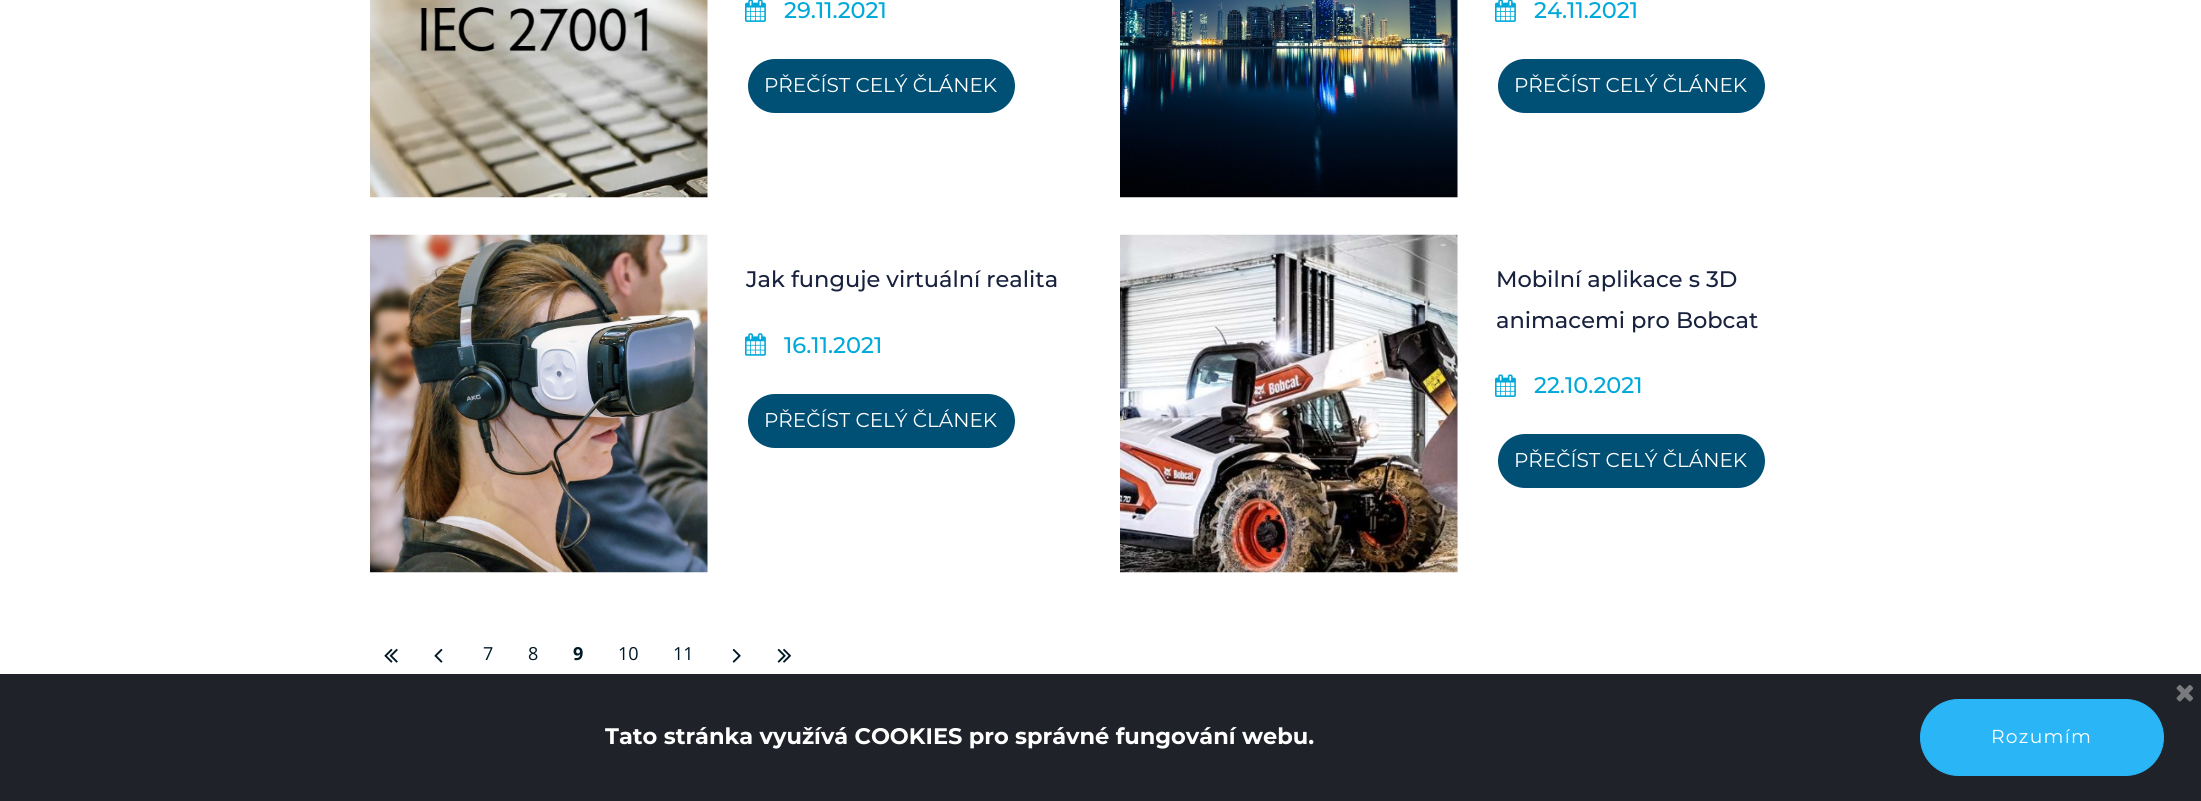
import math
import cairo

surface = cairo.ImageSurface(cairo.FORMAT_RGB24, 2201, 801)
ctx = cairo.Context(surface)
options = cairo.FontOptions()
options.set_hint_metrics(cairo.HINT_METRICS_OFF)
options.set_hint_style(cairo.HINT_STYLE_NONE)
ctx.set_font_options(options)
ctx.set_miter_limit(4)


def set_color(code):
    ctx.set_source_rgb(*(v / 255 for v in bytes.fromhex(code[-6:])))


def draw_text(x, y, s, family, size, color, bold=False, italic=False):
    ctx.select_font_face(family, cairo.FONT_SLANT_ITALIC if italic else cairo.FONT_SLANT_NORMAL, cairo.FONT_WEIGHT_BOLD if bold else cairo.FONT_WEIGHT_NORMAL)
    ctx.set_font_size(size)
    set_color(color)
    ctx.move_to(x, y)
    ctx.show_text(s)


def draw_spaced(x, y, s, letter, word):
    ctx.move_to(x, y)
    for ch in s:
        ctx.show_text(ch)
        ctx.rel_move_to(letter + word * (ch == ' '), 0)


def fill_rect(x, y, w, h, color):
    set_color(color)
    ctx.rectangle(x, y, w, h)
    ctx.fill()


def rounded_rect(x, y, w, h, r):
    ctx.new_sub_path()
    for i, (u, v) in enumerate([(x + w - r, y + h - r), (x + r, y + h - r), (x + r, y + r), (x + w - r, y + r)]):
        ctx.arc(u, v, r, i * math.pi / 2, (i + 1) * math.pi / 2)
    ctx.close_path()


def draw_image(path, x, y, w, h):
    ctx.save()
    ctx.set_source_surface(cairo.ImageSurface.create_from_png(path), x, y)
    ctx.rectangle(x, y, w, h)
    ctx.fill()
    ctx.restore()


set_color("#ffffff")
ctx.paint()
draw_image("assets/img1.png", 370, 0, 338, 198)
draw_image("assets/img2.png", 745, 0, 21, 22)
draw_text(784, 18, "29.11.2021", "Montserrat Medium", 22.5, "#00a9da")
set_color("#004f74")
rounded_rect(746.5, 57.5, 270, 57, 28.5)
ctx.fill_preserve()
set_color("#ffffff")
ctx.set_line_width(3)
ctx.stroke()
draw_text(764, 92, "PŘEČÍST CELÝ ČLÁNEK", "Montserrat", 20, "#ffffff")
draw_image("assets/img3.png", 1120, 0, 338, 198)
draw_image("assets/img2.png", 1495, 0, 21, 22)
draw_text(1534, 18, "24.11.2021", "Montserrat Medium", 22.5, "#00a9da")
set_color("#004f74")
rounded_rect(1496.5, 57.5, 270, 57, 28.5)
ctx.fill_preserve()
set_color("#ffffff")
ctx.stroke()
draw_text(1514, 92, "PŘEČÍST CELÝ ČLÁNEK", "Montserrat", 20, "#ffffff")
draw_image("assets/img4.png", 370, 234, 338, 339)
draw_text(746, 287, "Jak funguje virtuální realita", "Montserrat Medium", 22.5, "#18213d")
draw_image("assets/img5.png", 745, 333, 21, 23)
draw_text(784, 353, "16.11.2021", "Montserrat Medium", 22.5, "#00a9da")
set_color("#004f74")
rounded_rect(746.5, 392.5, 270, 57, 28.5)
ctx.fill_preserve()
set_color("#ffffff")
ctx.stroke()
draw_text(764, 427, "PŘEČÍST CELÝ ČLÁNEK", "Montserrat", 20, "#ffffff")
draw_image("assets/img6.png", 1120, 234, 338, 339)
draw_text(1496, 287, "Mobilní aplikace s 3D", "Montserrat Medium", 22.5, "#18213d")
draw_text(1496, 328, "animacemi pro Bobcat", "Montserrat Medium", 22.5, "#18213d")
draw_image("assets/img7.png", 1495, 374, 21, 23)
draw_text(1534, 393, "22.10.2021", "Montserrat Medium", 22.5, "#00a9da")
set_color("#004f74")
rounded_rect(1496.5, 432.5, 270, 57, 28.5)
ctx.fill_preserve()
set_color("#ffffff")
ctx.stroke()
draw_text(1514, 467, "PŘEČÍST CELÝ ČLÁNEK", "Montserrat", 20, "#ffffff")
draw_image("assets/img8.png", 384, 648, 14, 15)
draw_image("assets/img9.png", 434, 648, 9, 15)
draw_text(483, 660, "7", "Open Sans", 18, "#001825")
draw_text(528, 660, "8", "Open Sans", 18, "#001825")
draw_text(573, 660, "9", "Open Sans", 18, "#001825", bold=True)
draw_text(618, 660, "10", "Open Sans", 18, "#001825")
draw_text(673, 660, "11", "Open Sans", 18, "#001825")
draw_image("assets/img10.png", 732, 648, 9, 15)
draw_image("assets/img11.png", 777, 648, 14, 15)
fill_rect(0, 674, 2201, 127, "#1f2228")
draw_image("assets/img12.png", 2176, 685, 17, 17)
draw_text(605, 744, "Tato stránka využívá COOKIES pro správné fungování webu.", "Montserrat", 22.5, "#ffffff", bold=True)
set_color("#2ab5f6")
rounded_rect(1920.5, 699.5, 243, 76, 38)
ctx.fill_preserve()
ctx.set_line_width(1)
ctx.stroke()
ctx.select_font_face("Montserrat")
ctx.set_font_size(18.75)
set_color("#ffffff")
draw_spaced(1991, 743, "Rozumím", 1.25, 0)
surface.write_to_png("output.png")
